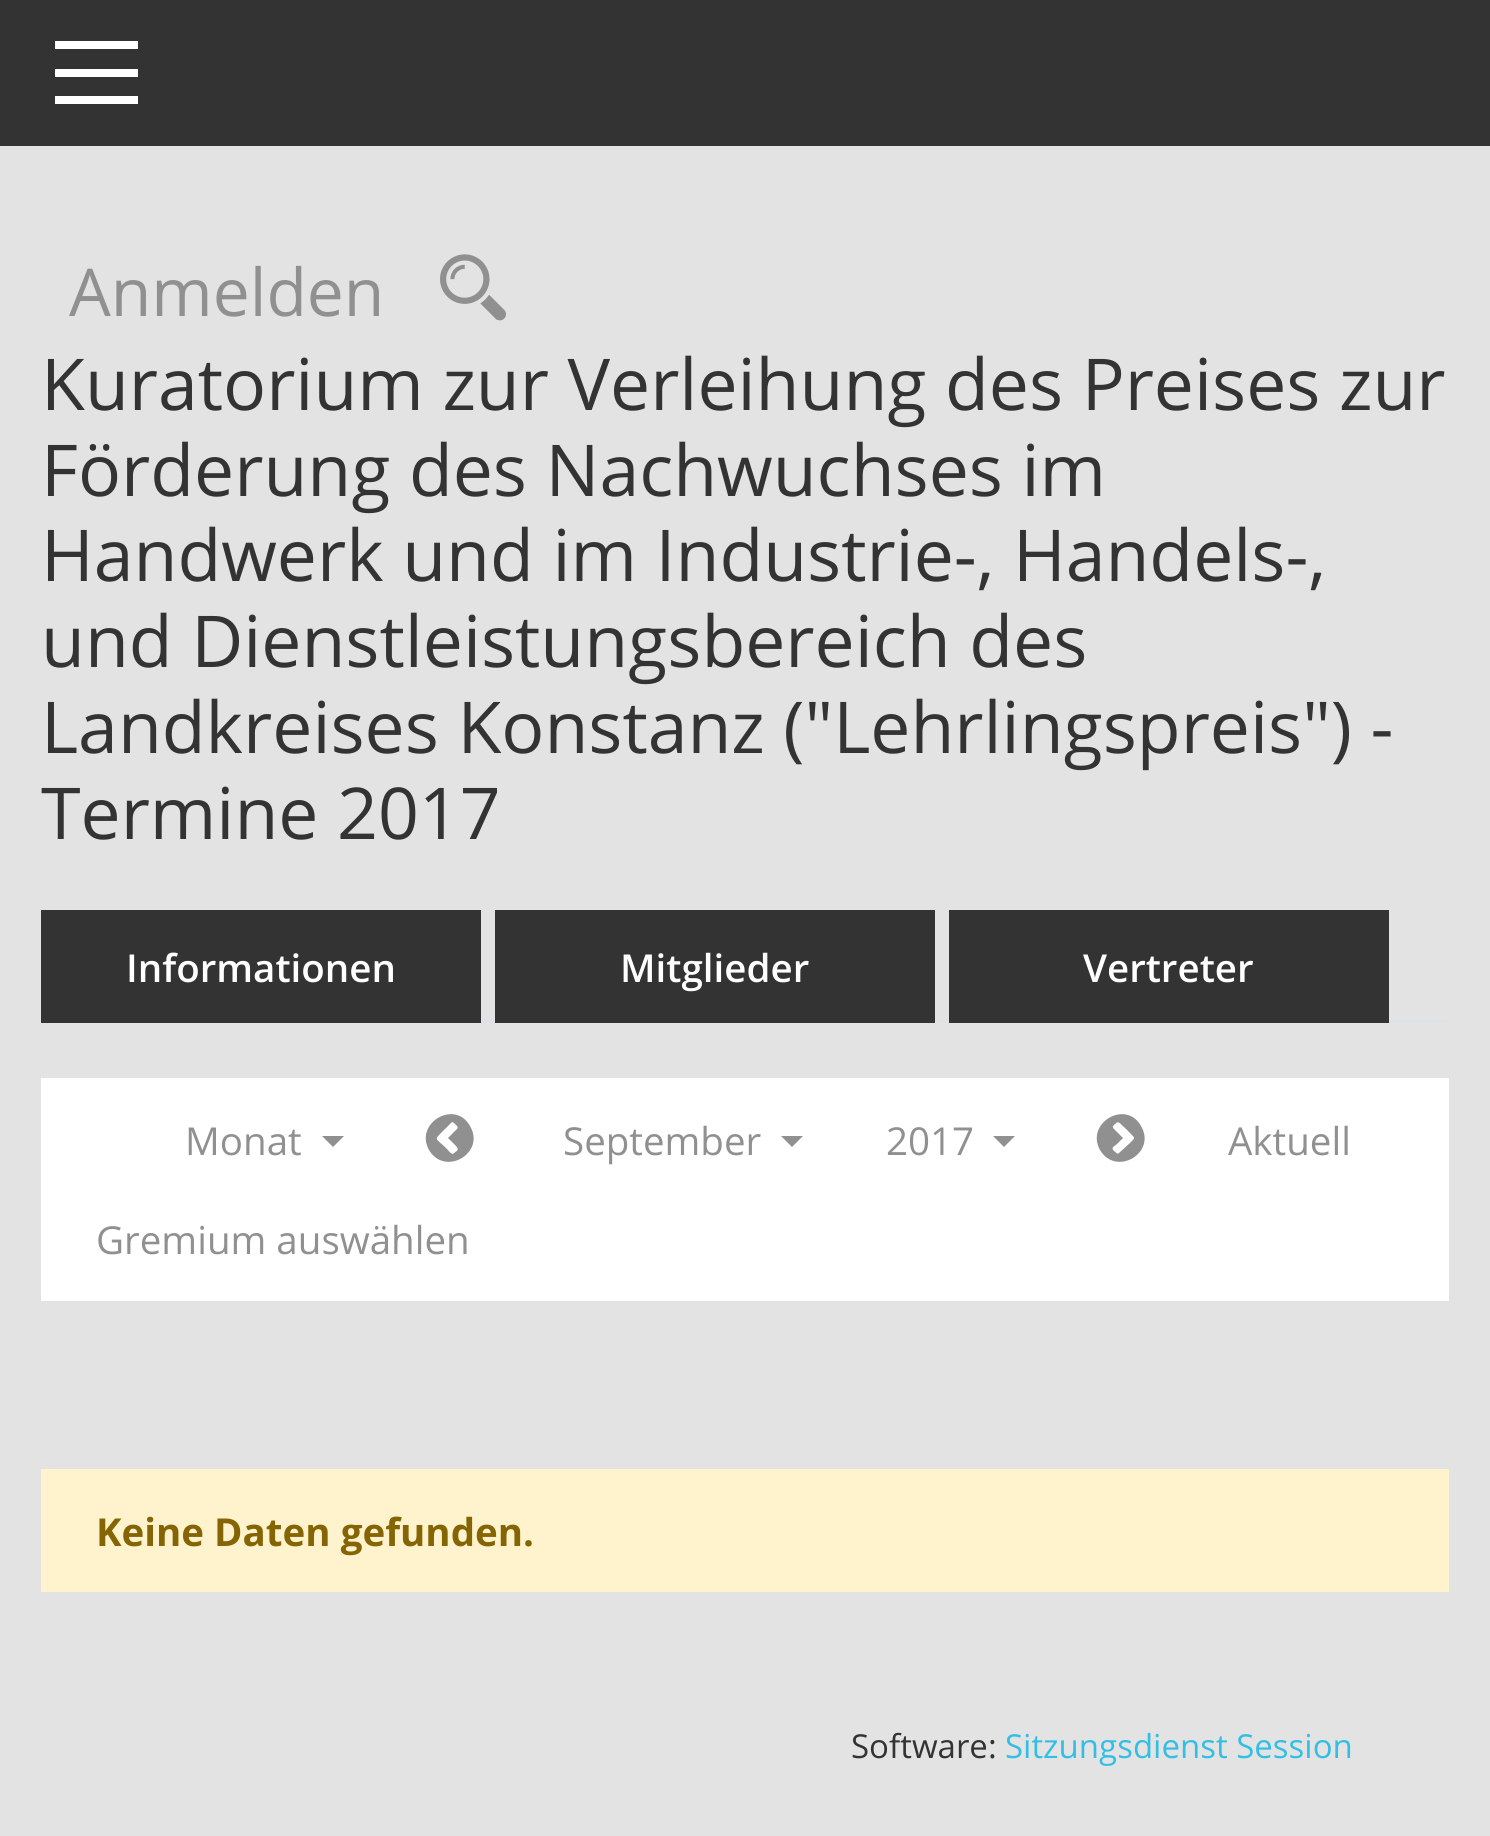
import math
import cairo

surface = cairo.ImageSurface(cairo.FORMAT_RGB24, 1490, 1836)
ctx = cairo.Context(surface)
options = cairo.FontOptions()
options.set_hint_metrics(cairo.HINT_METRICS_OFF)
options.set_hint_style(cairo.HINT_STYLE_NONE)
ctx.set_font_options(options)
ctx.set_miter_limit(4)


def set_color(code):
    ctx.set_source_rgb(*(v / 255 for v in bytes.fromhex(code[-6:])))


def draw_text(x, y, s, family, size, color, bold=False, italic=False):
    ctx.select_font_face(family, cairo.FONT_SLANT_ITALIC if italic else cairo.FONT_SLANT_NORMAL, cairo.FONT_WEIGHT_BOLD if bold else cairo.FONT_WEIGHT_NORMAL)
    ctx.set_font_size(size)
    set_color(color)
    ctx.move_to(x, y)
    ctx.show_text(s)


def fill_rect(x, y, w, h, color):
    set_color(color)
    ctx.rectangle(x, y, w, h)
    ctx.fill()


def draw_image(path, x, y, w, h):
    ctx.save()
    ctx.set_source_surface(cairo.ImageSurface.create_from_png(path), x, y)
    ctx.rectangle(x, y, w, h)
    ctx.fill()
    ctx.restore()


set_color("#e3e3e3")
ctx.paint()
fill_rect(0, 0, 1490, 146, "#333333")
fill_rect(55, 41, 83, 8, "#ffffff")
fill_rect(55, 69, 83, 8, "#ffffff")
fill_rect(55, 96, 83, 8, "#ffffff")
draw_text(69, 316, "Anmelden", "Open Sans", 66, "#909090")
draw_image("assets/img1.png", 440, 254, 66, 67)
draw_text(41, 410, "Kuratorium zur Verleihung des Preises zur", "Open Sans", 71.5, "#333333")
draw_text(41, 496, "Förderung des Nachwuchses im", "Open Sans", 71.5, "#333333")
draw_text(41, 581, "Handwerk und im Industrie-, Handels-,", "Open Sans", 71.5, "#333333")
draw_text(41, 667, "und Dienstleistungsbereich des", "Open Sans", 71.5, "#333333")
draw_text(41, 753, "Landkreises Konstanz (\"Lehrlingspreis\") -", "Open Sans", 71.5, "#333333")
draw_text(41, 839, "Termine 2017", "Open Sans", 71.5, "#333333")
fill_rect(481, 1020, 968, 3, "#dee2e6")
fill_rect(41, 910, 440, 113, "#333333")
draw_text(126, 982, "Informationen", "Open Sans SemiBold", 38.5, "#ffffff")
fill_rect(495, 910, 440, 113, "#333333")
draw_text(620, 982, "Mitglieder", "Open Sans SemiBold", 38.5, "#ffffff")
fill_rect(949, 910, 440, 113, "#333333")
draw_text(1083, 982, "Vertreter", "Open Sans SemiBold", 38.5, "#ffffff")
fill_rect(41, 1078, 1408, 223, "#ffffff")
draw_text(185, 1155, "Monat", "Open Sans", 38.5, "#909090")
ctx.new_path()
ctx.move_to(322, 1136)
ctx.line_to(344, 1136)
ctx.line_to(333, 1147)
ctx.close_path()
ctx.fill()
ctx.new_path()
ctx.move_to(454, 1153)
ctx.curve_to(458, 1150, 459, 1150, 456, 1146)
ctx.line_to(448, 1138)
ctx.line_to(457, 1129)
ctx.curve_to(459, 1127, 456, 1125, 455, 1124)
ctx.curve_to(452, 1121, 452, 1122, 449, 1125)
ctx.line_to(444, 1130)
ctx.curve_to(433, 1141, 435, 1137, 447, 1149)
ctx.curve_to(448, 1150, 452, 1156, 454, 1153)
ctx.close_path()
ctx.move_to(470, 1126)
ctx.curve_to(486, 1153, 445, 1177, 429, 1150)
ctx.curve_to(414, 1123, 455, 1099, 470, 1126)
ctx.close_path()
ctx.fill()
draw_text(563, 1155, "September", "Open Sans", 38.5, "#909090")
ctx.new_path()
ctx.move_to(781, 1136)
ctx.line_to(803, 1136)
ctx.line_to(792, 1147)
ctx.close_path()
ctx.fill()
draw_text(886, 1155, "2017", "Open Sans", 38.5, "#909090")
ctx.new_path()
ctx.move_to(993, 1136)
ctx.line_to(1015, 1136)
ctx.line_to(1004, 1147)
ctx.close_path()
ctx.fill()
ctx.new_path()
ctx.move_to(1119, 1153)
ctx.line_to(1131, 1142)
ctx.curve_to(1135, 1138, 1135, 1138, 1131, 1134)
ctx.line_to(1124, 1127)
ctx.curve_to(1120, 1124, 1119, 1120, 1115, 1124)
ctx.curve_to(1112, 1127, 1112, 1127, 1115, 1130)
ctx.line_to(1123, 1138)
ctx.line_to(1117, 1144)
ctx.curve_to(1113, 1147, 1111, 1148, 1114, 1151)
ctx.curve_to(1116, 1152, 1117, 1155, 1119, 1153)
ctx.close_path()
ctx.move_to(1141, 1126)
ctx.curve_to(1157, 1153, 1116, 1177, 1100, 1150)
ctx.curve_to(1085, 1123, 1126, 1099, 1141, 1126)
ctx.close_path()
ctx.fill()
draw_text(1228, 1155, "Aktuell", "Open Sans", 38.5, "#909090")
draw_text(96, 1254, "Gremium auswählen", "Open Sans", 38.5, "#909090")
fill_rect(41, 1469, 1408, 123, "#fff3cd")
draw_text(96, 1546, "Keine Daten gefunden.", "Open Sans", 38.5, "#856404", bold=True)
draw_text(851, 1758, "Software:", "Open Sans", 33, "#333333")
draw_text(1005, 1758, "Sitzungsdienst Session", "Open Sans", 33, "#33bee5")
surface.write_to_png("output.png")
